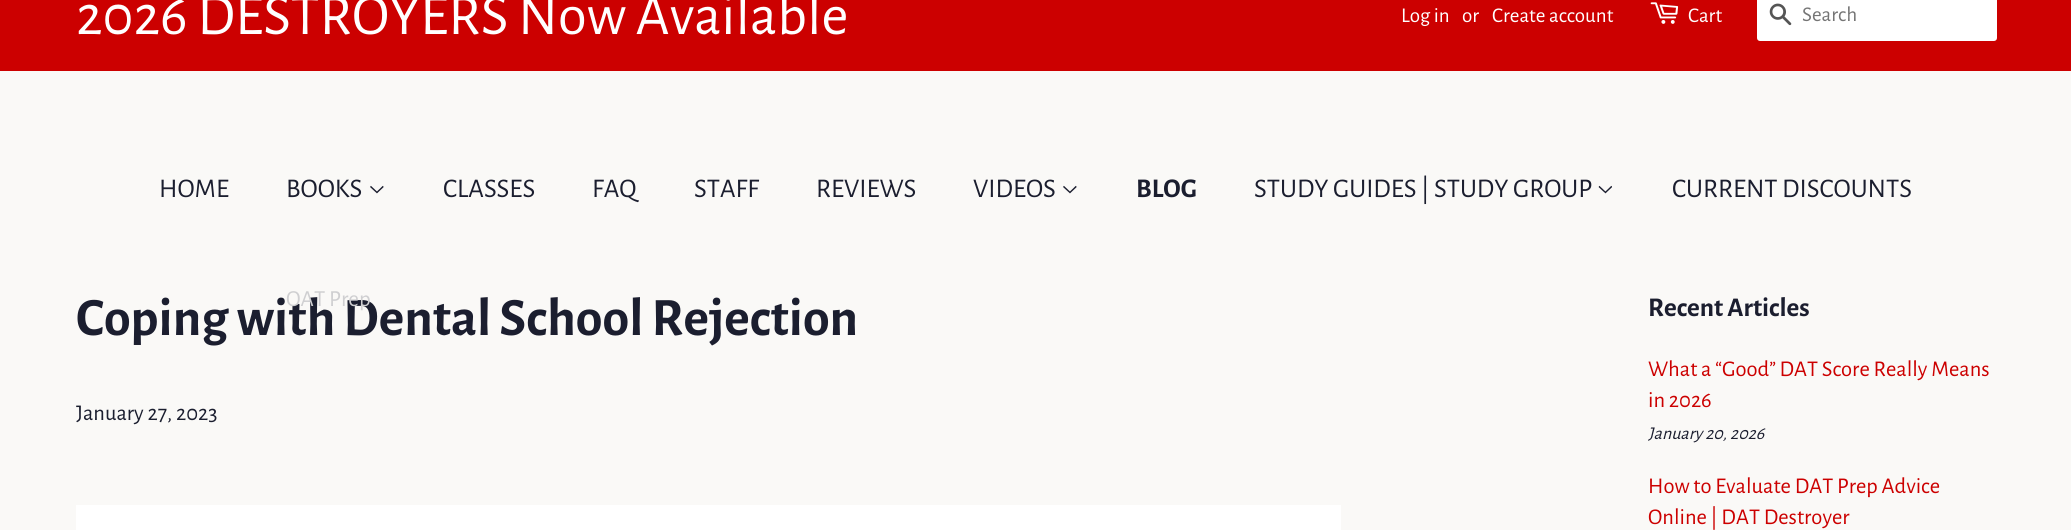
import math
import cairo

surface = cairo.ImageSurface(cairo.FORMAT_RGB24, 2071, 530)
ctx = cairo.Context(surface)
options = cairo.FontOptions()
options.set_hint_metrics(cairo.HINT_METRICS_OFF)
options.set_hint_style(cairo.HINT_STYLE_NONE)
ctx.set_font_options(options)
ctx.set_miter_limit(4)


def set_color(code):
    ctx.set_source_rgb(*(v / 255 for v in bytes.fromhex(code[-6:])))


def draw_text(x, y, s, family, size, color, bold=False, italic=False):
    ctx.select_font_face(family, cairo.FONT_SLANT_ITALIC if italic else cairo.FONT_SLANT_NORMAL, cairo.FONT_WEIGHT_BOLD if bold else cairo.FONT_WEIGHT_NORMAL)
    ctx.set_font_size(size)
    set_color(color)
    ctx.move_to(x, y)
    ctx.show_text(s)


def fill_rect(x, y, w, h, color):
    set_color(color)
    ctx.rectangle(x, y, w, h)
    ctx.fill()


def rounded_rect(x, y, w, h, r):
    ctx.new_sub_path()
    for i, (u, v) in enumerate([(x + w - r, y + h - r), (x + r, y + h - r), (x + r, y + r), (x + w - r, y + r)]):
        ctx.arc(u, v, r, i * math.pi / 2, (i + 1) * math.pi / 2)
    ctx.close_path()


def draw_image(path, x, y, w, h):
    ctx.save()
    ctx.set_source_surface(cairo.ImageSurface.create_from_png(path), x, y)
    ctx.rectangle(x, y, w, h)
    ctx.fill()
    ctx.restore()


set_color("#faf9f7")
ctx.paint()
fill_rect(0, 0, 2071, 71, "#cc0000")
draw_text(76, 34, "2026 DESTROYERS Now Available", "Alegreya Sans", 58.5, "#ffffff")
draw_text(1401, 22, "Log in", "Alegreya Sans", 21, "#ffffff")
draw_text(1462, 22, "or", "Alegreya Sans", 21, "#ffffff")
draw_text(1492, 22, "Create account", "Alegreya Sans", 21, "#ffffff")
draw_image("assets/img1.png", 1650, 2, 29, 22)
draw_text(1688, 22, "Cart", "Alegreya Sans", 21, "#ffffff")
rounded_rect(1757, -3, 240, 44, 3)
ctx.fill()
draw_image("assets/img2.png", 1769, 3, 23, 23)
draw_text(1802, 21, "Search", "Alegreya Sans", 21, "#757575")
draw_text(159, 197, "HOME", "Alegreya Sans", 27, "#1b1e2f")
draw_text(286, 197, "BOOKS", "Alegreya Sans", 27, "#1b1e2f")
draw_image("assets/img3.png", 370, 185, 14, 9)
draw_text(76, 335, "Coping with Dental School Rejection", "Alegreya Sans", 54, "#1b1e2f", bold=True)
draw_text(286, 306, "OAT Prep", "Alegreya Sans", 23, "#cfcfd1")
draw_text(443, 197, "CLASSES", "Alegreya Sans", 27, "#1b1e2f")
draw_text(592, 197, "FAQ", "Alegreya Sans", 27, "#1b1e2f")
draw_text(694, 197, "STAFF", "Alegreya Sans", 27, "#1b1e2f")
draw_text(816, 197, "REVIEWS", "Alegreya Sans", 27, "#1b1e2f")
draw_text(973, 197, "VIDEOS", "Alegreya Sans", 27, "#1b1e2f")
draw_image("assets/img3.png", 1063, 185, 14, 9)
draw_text(1136, 197, "BLOG", "Alegreya Sans", 27, "#1b1e2f", bold=True)
draw_text(1254, 197, "STUDY GUIDES | STUDY GROUP", "Alegreya Sans", 27, "#1b1e2f")
draw_image("assets/img4.png", 1598, 185, 14, 9)
draw_text(1672, 197, "CURRENT DISCOUNTS", "Alegreya Sans", 27, "#1b1e2f")
draw_text(76, 420, "January 27, 2023", "Alegreya Sans", 22.5, "#1b1e2f")
fill_rect(76, 505, 1265, 25, "#ffffff")
draw_text(1648, 316, "Recent Articles", "Alegreya Sans", 27, "#1b1e2f", bold=True)
draw_text(1648, 376, "What a “Good” DAT Score Really Means", "Alegreya Sans", 22.5, "#cc0000")
draw_text(1648, 407, "in 2026", "Alegreya Sans", 22.5, "#cc0000")
draw_text(1648, 439, "January 20, 2026", "Alegreya Sans", 18, "#1b1e2f", italic=True)
draw_text(1648, 493, "How to Evaluate DAT Prep Advice", "Alegreya Sans", 22.5, "#cc0000")
draw_text(1648, 524, "Online | DAT Destroyer", "Alegreya Sans", 22.5, "#cc0000")
surface.write_to_png("output.png")
